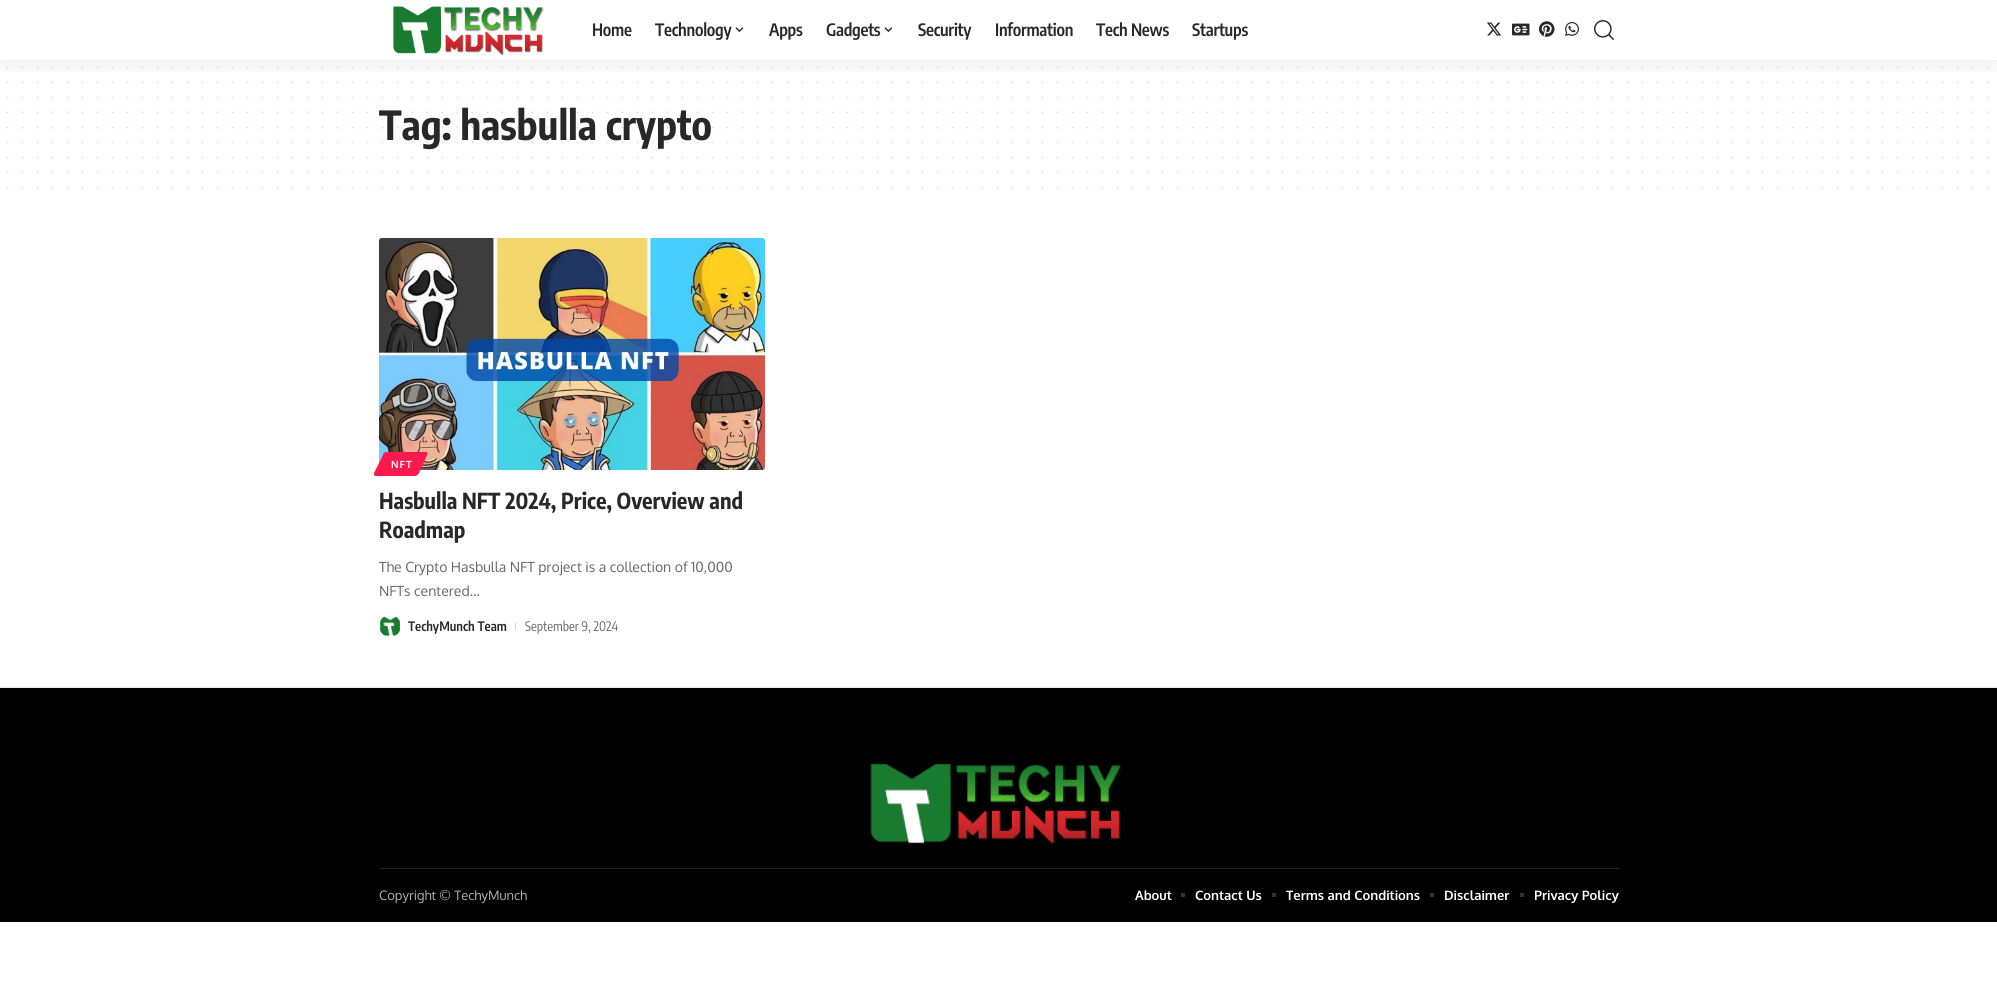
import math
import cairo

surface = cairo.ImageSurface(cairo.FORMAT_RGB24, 1997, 984)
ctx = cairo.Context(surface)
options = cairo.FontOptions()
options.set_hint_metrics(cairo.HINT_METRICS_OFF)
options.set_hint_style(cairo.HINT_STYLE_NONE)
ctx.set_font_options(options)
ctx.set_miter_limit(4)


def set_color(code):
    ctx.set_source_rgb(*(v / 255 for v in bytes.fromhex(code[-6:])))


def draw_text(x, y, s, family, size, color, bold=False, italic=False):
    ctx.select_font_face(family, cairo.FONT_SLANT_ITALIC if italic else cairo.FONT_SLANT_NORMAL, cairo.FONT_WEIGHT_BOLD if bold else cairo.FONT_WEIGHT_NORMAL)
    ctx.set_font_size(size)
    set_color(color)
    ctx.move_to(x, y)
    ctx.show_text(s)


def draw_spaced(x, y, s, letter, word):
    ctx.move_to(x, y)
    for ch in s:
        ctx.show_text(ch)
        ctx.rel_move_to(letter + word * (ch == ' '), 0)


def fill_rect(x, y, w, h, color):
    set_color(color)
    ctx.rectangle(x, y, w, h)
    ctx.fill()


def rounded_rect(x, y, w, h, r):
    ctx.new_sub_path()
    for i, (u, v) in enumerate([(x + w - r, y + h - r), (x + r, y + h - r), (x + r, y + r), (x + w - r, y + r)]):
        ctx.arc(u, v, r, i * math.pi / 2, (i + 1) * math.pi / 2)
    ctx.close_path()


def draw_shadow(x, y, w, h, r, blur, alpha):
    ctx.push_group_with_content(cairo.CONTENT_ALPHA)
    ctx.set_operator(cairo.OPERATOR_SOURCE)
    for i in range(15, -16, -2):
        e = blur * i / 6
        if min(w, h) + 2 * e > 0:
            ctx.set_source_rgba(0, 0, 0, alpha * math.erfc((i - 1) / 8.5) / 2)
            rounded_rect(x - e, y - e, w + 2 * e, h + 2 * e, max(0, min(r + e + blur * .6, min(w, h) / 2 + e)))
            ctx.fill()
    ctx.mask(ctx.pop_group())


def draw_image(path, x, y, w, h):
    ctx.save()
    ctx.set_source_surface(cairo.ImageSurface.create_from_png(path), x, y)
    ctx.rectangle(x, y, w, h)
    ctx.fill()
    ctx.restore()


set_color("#ffffff")
ctx.paint()
ctx.new_path()
ctx.move_to(7.5, 67.5)
ctx.line_to(1987.7, 67.5)
set_color("#dfdfdf")
ctx.set_line_cap(cairo.LINE_CAP_ROUND)
ctx.set_dash([0, 15])
ctx.stroke()
ctx.new_path()
ctx.move_to(7.5, 82.5)
ctx.line_to(1987.7, 82.5)
ctx.stroke()
ctx.new_path()
ctx.move_to(7.5, 97.5)
ctx.line_to(1987.7, 97.5)
ctx.stroke()
ctx.save()
ctx.rectangle(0, 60, 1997, 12)
ctx.clip()
set_color("#000000")
draw_shadow(0, 4, 1997, 60, 0, 15, 0.07)
ctx.restore()
draw_image("assets/img1.png", 393, 6, 151, 50)
ctx.select_font_face("Encode Sans Condensed SemiBold")
ctx.set_font_size(17)
set_color("#282828")
draw_spaced(592, 36, "Home", -0.25, 0)
draw_spaced(655, 36, "Technology", -0.25, 0)
draw_image("assets/img2.png", 735, 27, 9, 5)
draw_spaced(769, 36, "Apps", -0.25, 0)
draw_spaced(826, 36, "Gadgets", -0.25, 0)
draw_image("assets/img2.png", 884, 27, 9, 5)
draw_spaced(918, 36, "Security", -0.25, 0)
draw_spaced(995, 36, "Information", -0.25, 0)
draw_spaced(1096, 36, "Tech News", -0.25, 0)
draw_spaced(1192, 36, "Startups", -0.25, 0)
draw_image("assets/img3.png", 1487, 22, 15, 14)
draw_image("assets/img4.png", 1512, 23, 18, 13)
draw_image("assets/img5.png", 1539, 21, 16, 16)
draw_image("assets/img6.png", 1565, 22, 14, 14)
draw_image("assets/img7.png", 1594, 20, 20, 20)
draw_text(379, 140, "Tag: hasbulla crypto", "Encode Sans Condensed", 40, "#282828", bold=True)
ctx.new_path()
ctx.move_to(7.5, 112.5)
ctx.line_to(1987.7, 112.5)
ctx.set_source_rgba(0.157, 0.157, 0.157, 0.15)
ctx.stroke()
ctx.new_path()
ctx.move_to(7.5, 127.5)
ctx.line_to(1987.7, 127.5)
ctx.stroke()
ctx.new_path()
ctx.move_to(7.5, 142.5)
ctx.line_to(1987.7, 142.5)
set_color("#dfdfdf")
ctx.stroke()
ctx.new_path()
ctx.move_to(7.5, 157.5)
ctx.line_to(1987.7, 157.5)
ctx.stroke()
ctx.new_path()
ctx.move_to(7.5, 172.5)
ctx.line_to(1987.7, 172.5)
ctx.stroke()
ctx.new_path()
ctx.move_to(7.5, 187.5)
ctx.line_to(1987.7, 187.5)
ctx.stroke()
draw_image("assets/img8.png", 379, 238, 386, 232)
set_color("#ff184e")
ctx.new_path()
ctx.move_to(387, 452)
ctx.line_to(426, 452)
ctx.curve_to(427, 452, 428, 453, 427, 455)
ctx.line_to(419, 473)
ctx.curve_to(418, 475, 416, 476, 415, 476)
ctx.line_to(376, 476)
ctx.curve_to(374, 476, 374, 475, 374, 473)
ctx.line_to(383, 455)
ctx.curve_to(383, 453, 385, 452, 387, 452)
ctx.close_path()
ctx.fill()
ctx.select_font_face("Oxygen", cairo.FONT_SLANT_NORMAL, cairo.FONT_WEIGHT_BOLD)
ctx.set_font_size(10)
set_color("#ffffff")
draw_spaced(391, 468, "NFT", 1, 0)
draw_text(379, 509, "Hasbulla NFT 2024, Price, Overview and", "Encode Sans Condensed", 22, "#282828", bold=True)
draw_text(379, 538, "Roadmap", "Encode Sans Condensed", 22, "#282828", bold=True)
draw_text(379, 572, "The Crypto Hasbulla NFT project is a collection of 10,000", "Oxygen", 14, "#666666")
draw_text(379, 596, "NFTs centered…", "Oxygen", 14, "#666666")
draw_image("assets/img9.png", 380, 616, 21, 21)
draw_text(408, 631, "TechyMunch Team", "Encode Sans Condensed SemiBold", 13, "#282828")
fill_rect(515, 623, 1, 6, "#d1d1d1")
draw_text(525, 631, "September 9, 2024", "Encode Sans Condensed", 13, "#666666")
fill_rect(0, 687, 1997, 1, "#ededed")
fill_rect(0, 688, 1997, 234, "#000000")
ctx.new_path()
ctx.move_to(8, 696)
ctx.line_to(392.2, 696)
set_color("#080808")
ctx.set_line_width(1.5)
ctx.set_dash([0, 16])
ctx.stroke()
ctx.new_path()
ctx.move_to(8, 712)
ctx.line_to(392.2, 712)
ctx.stroke()
ctx.new_path()
ctx.move_to(8, 728)
ctx.line_to(392.2, 728)
ctx.stroke()
ctx.new_path()
ctx.move_to(8, 744)
ctx.line_to(392.2, 744)
ctx.stroke()
ctx.new_path()
ctx.move_to(8, 760)
ctx.line_to(392.2, 760)
ctx.stroke()
ctx.new_path()
ctx.move_to(8, 776)
ctx.line_to(392.2, 776)
ctx.stroke()
ctx.new_path()
ctx.move_to(8, 792)
ctx.line_to(392.2, 792)
ctx.stroke()
draw_image("assets/img10.png", 870, 763, 252, 82)
fill_rect(379, 868, 1240, 1, "#222222")
draw_text(379, 900, "Copyright © TechyMunch", "Oxygen", 13, "#b3b3b3")
draw_text(1135, 900, "About", "Oxygen", 13, "#ffffff", bold=True)
fill_rect(1181, 893, 4, 4, "#333333")
draw_text(1195, 900, "Contact Us", "Oxygen", 13, "#ffffff", bold=True)
fill_rect(1272, 893, 4, 4, "#333333")
draw_text(1286, 900, "Terms and Conditions", "Oxygen", 13, "#ffffff", bold=True)
fill_rect(1430, 893, 4, 4, "#333333")
draw_text(1444, 900, "Disclaimer", "Oxygen", 13, "#ffffff", bold=True)
fill_rect(1520, 893, 4, 4, "#333333")
draw_text(1534, 900, "Privacy Policy", "Oxygen", 13, "#ffffff", bold=True)
surface.write_to_png("output.png")
